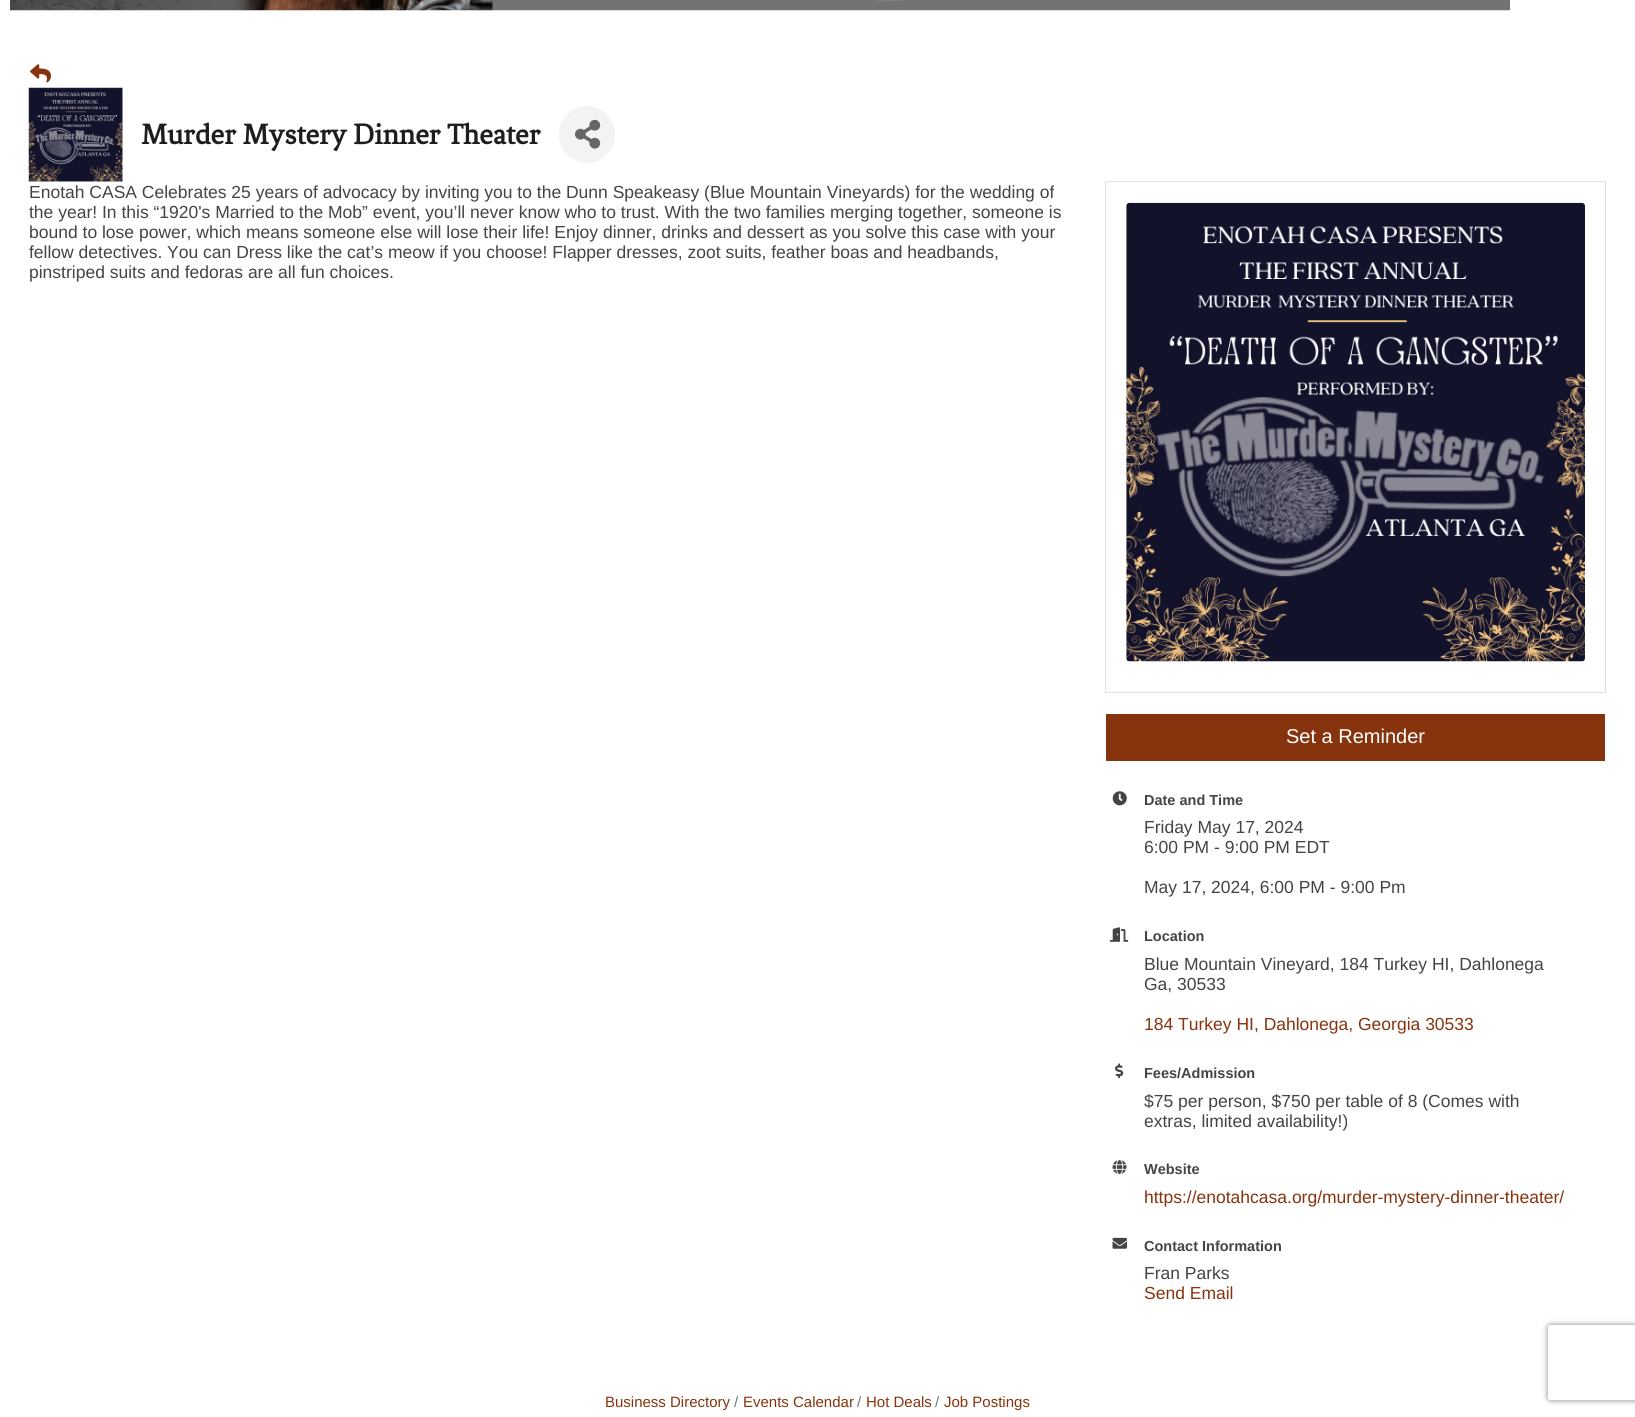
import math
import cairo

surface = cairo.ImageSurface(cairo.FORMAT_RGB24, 1635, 1417)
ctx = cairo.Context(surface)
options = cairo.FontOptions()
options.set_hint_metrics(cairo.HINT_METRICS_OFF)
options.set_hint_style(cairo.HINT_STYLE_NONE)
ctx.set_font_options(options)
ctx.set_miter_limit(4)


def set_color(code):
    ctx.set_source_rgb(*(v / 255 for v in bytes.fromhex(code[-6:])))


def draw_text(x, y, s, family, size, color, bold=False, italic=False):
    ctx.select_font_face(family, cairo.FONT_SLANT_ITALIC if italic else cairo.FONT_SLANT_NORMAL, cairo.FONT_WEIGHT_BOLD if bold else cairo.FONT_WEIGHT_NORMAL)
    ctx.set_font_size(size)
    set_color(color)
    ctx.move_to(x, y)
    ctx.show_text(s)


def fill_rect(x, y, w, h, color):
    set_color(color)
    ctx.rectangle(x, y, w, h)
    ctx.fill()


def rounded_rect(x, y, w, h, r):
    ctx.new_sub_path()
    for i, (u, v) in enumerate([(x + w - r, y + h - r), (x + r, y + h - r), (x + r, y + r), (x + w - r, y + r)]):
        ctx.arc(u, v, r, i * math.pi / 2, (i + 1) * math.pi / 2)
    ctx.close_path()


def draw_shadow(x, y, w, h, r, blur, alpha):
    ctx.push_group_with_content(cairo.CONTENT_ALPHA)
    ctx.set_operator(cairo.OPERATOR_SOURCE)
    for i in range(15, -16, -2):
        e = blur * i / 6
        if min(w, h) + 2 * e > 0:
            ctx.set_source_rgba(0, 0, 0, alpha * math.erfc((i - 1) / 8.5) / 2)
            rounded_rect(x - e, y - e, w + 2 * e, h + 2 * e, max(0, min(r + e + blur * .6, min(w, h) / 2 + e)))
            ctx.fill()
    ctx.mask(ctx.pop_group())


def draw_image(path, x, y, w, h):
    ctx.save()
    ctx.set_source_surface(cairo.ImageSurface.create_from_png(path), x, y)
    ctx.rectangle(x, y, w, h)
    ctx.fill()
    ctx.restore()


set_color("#ffffff")
ctx.paint()
draw_image("assets/img1.png", 10, 0, 1500, 11)
draw_image("assets/img2.png", 30, 64, 21, 19)
draw_image("assets/img3.png", 28, 87, 95, 95)
draw_text(141, 144, "Murder Mystery Dinner Theater", "Fenix", 30, "#1e1e1e", bold=True)
set_color("#f3f3f3")
rounded_rect(559, 106, 56, 57, 28)
ctx.fill()
draw_image("assets/img4.png", 575, 119, 26, 30)
draw_text(29, 198, "Enotah CASA Celebrates 25 years of advocacy by inviting you to the Dunn Speakeasy (Blue Mountain Vineyards) for the wedding of", "Liberation Sans", 17.5, "#444444")
draw_text(29, 218, "the year! In this “1920's Married to the Mob” event, you’ll never know who to trust. With the two families merging together, someone is", "Liberation Sans", 17.5, "#444444")
draw_text(29, 238, "bound to lose power, which means someone else will lose their life! Enjoy dinner, drinks and dessert as you solve this case with your", "Liberation Sans", 17.5, "#444444")
draw_text(29, 258, "fellow detectives. You can Dress like the cat’s meow if you choose! Flapper dresses, zoot suits, feather boas and headbands,", "Liberation Sans", 17.5, "#444444")
draw_text(29, 278, "pinstriped suits and fedoras are all fun choices.", "Liberation Sans", 17.5, "#444444")
ctx.rectangle(1105.5, 181.5, 500, 511)
set_color("#dfdfdf")
ctx.set_line_width(1)
ctx.stroke()
draw_image("assets/img5.png", 1126, 202, 459, 460)
fill_rect(1106, 714, 499, 47, "#87340e")
draw_text(1286, 743, "Set a Reminder", "Liberation Sans", 20, "#ffffff")
draw_image("assets/img6.png", 1112, 791, 15, 15)
draw_text(1144, 805, "Date and Time", "Liberation Sans", 14.5, "#444444", bold=True)
draw_text(1144, 833, "Friday May 17, 2024", "Liberation Sans", 17.5, "#444444")
draw_text(1144, 853, "6:00 PM - 9:00 PM EDT", "Liberation Sans", 17.5, "#444444")
draw_text(1144, 893, "May 17, 2024, 6:00 PM - 9:00 Pm", "Liberation Sans", 17.5, "#444444")
draw_image("assets/img7.png", 1110, 927, 19, 15)
draw_text(1144, 941, "Location", "Liberation Sans", 14.5, "#444444", bold=True)
draw_text(1144, 970, "Blue Mountain Vineyard, 184 Turkey HI, Dahlonega", "Liberation Sans", 17.5, "#444444")
draw_text(1144, 990, "Ga, 30533", "Liberation Sans", 17.5, "#444444")
draw_text(1144, 1030, "184 Turkey HI, Dahlonega, Georgia 30533", "Liberation Sans", 17.5, "#87340e")
draw_image("assets/img8.png", 1115, 1063, 9, 16)
draw_text(1144, 1078, "Fees/Admission", "Liberation Sans", 14.5, "#444444", bold=True)
draw_text(1144, 1107, "$75 per person, $750 per table of 8 (Comes with", "Liberation Sans", 17.5, "#444444")
draw_text(1144, 1127, "extras, limited availability!)", "Liberation Sans", 17.5, "#444444")
draw_image("assets/img9.png", 1112, 1160, 15, 14)
draw_text(1144, 1174, "Website", "Liberation Sans", 14.5, "#444444", bold=True)
draw_text(1144, 1203, "https://enotahcasa.org/murder-mystery-dinner-theater/", "Liberation Sans", 17.5, "#87340e")
draw_image("assets/img10.png", 1112, 1237, 16, 12)
draw_text(1144, 1251, "Contact Information", "Liberation Sans", 14.5, "#444444", bold=True)
draw_text(1144, 1279, "Fran Parks", "Liberation Sans", 17.5, "#444444")
draw_text(1144, 1299, "Send Email", "Liberation Sans", 17.5, "#87340e")
draw_text(605, 1407, "Business Directory", "Liberation Sans", 15, "#87340e")
draw_text(734, 1407, "/", "Liberation Sans", 15, "#6c757d")
draw_text(743, 1407, "Events Calendar", "Liberation Sans", 15, "#87340e")
draw_text(857, 1407, "/", "Liberation Sans", 15, "#6c757d")
draw_text(866, 1407, "Hot Deals", "Liberation Sans", 15, "#87340e")
draw_text(935, 1407, "/", "Liberation Sans", 15, "#6c757d")
draw_text(944, 1407, "Job Postings", "Liberation Sans", 15, "#87340e")
ctx.save()
ctx.set_fill_rule(cairo.FILL_RULE_EVEN_ODD)
ctx.new_path()
ctx.move_to(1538, 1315)
ctx.line_to(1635, 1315)
ctx.line_to(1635, 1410)
ctx.line_to(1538, 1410)
ctx.close_path()
ctx.move_to(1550.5, 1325)
ctx.line_to(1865.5, 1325)
ctx.curve_to(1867, 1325, 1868, 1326, 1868, 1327.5)
ctx.line_to(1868, 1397.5)
ctx.curve_to(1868, 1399, 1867, 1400, 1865.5, 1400)
ctx.line_to(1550.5, 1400)
ctx.curve_to(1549, 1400, 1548, 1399, 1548, 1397.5)
ctx.line_to(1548, 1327.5)
ctx.curve_to(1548, 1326, 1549, 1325, 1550.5, 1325)
ctx.close_path()
ctx.clip()
set_color("#808080")
draw_shadow(1548, 1325, 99, 75, 2.5, 3, 1)
ctx.restore()
surface.write_to_png("output.png")
